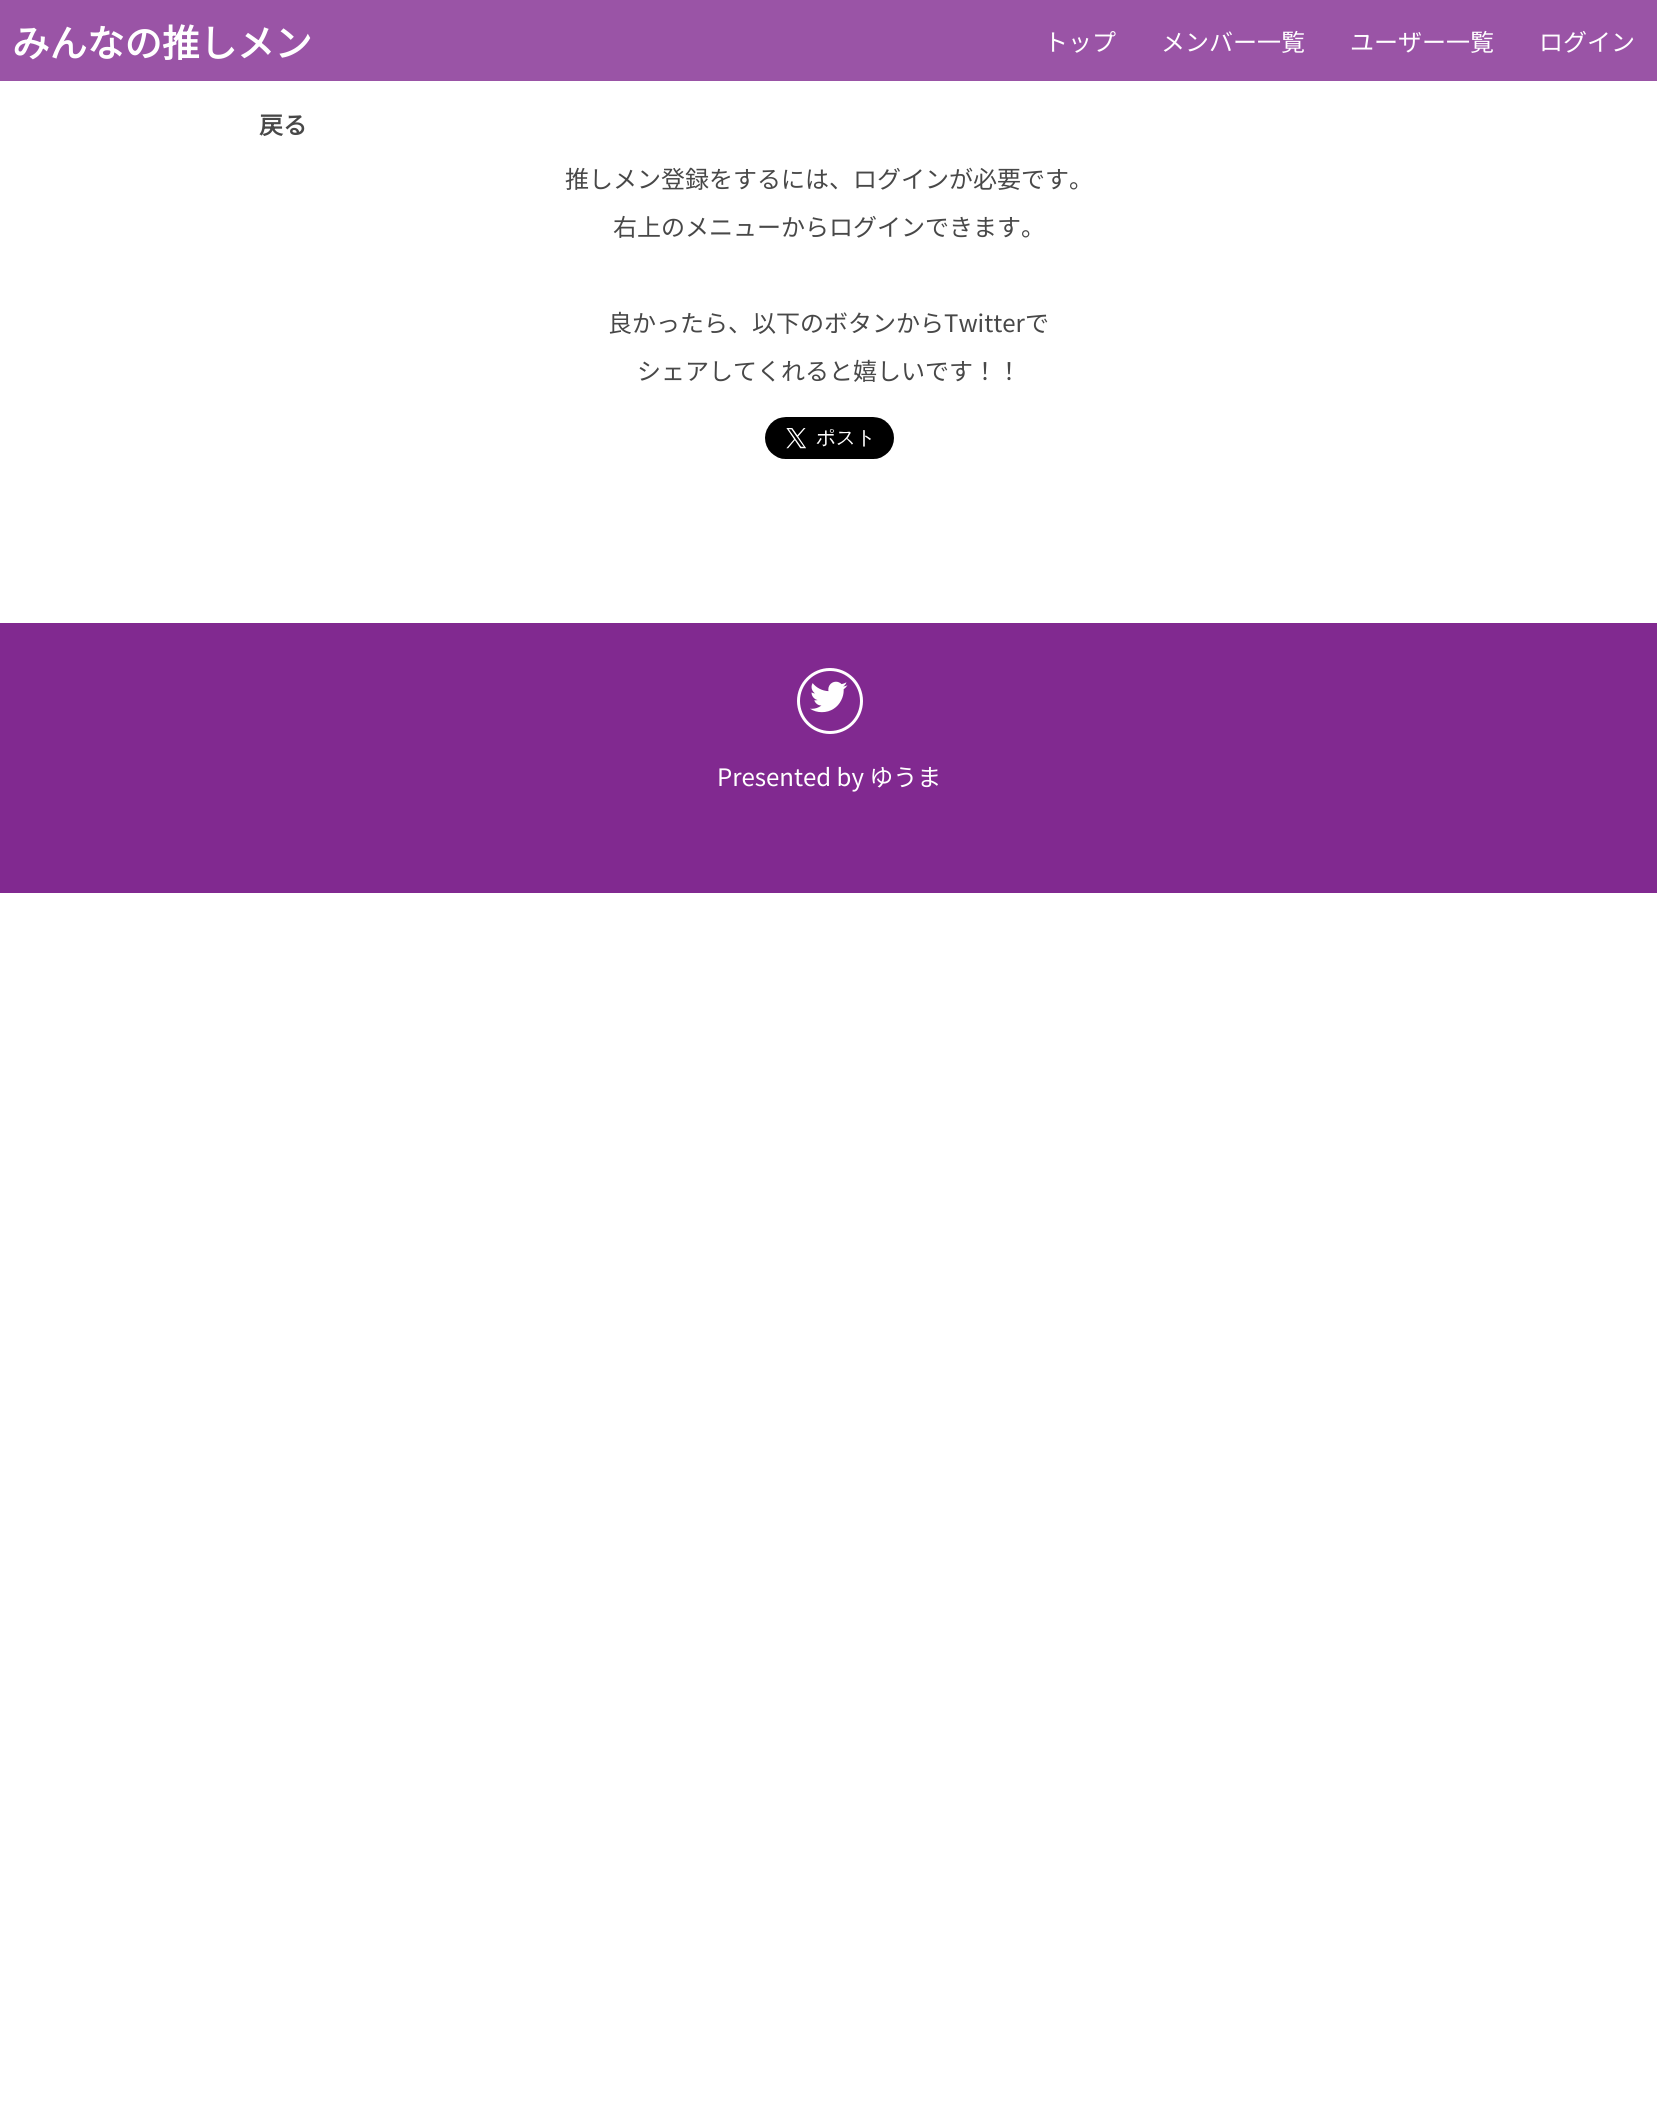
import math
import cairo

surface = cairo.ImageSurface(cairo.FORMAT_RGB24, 1657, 2114)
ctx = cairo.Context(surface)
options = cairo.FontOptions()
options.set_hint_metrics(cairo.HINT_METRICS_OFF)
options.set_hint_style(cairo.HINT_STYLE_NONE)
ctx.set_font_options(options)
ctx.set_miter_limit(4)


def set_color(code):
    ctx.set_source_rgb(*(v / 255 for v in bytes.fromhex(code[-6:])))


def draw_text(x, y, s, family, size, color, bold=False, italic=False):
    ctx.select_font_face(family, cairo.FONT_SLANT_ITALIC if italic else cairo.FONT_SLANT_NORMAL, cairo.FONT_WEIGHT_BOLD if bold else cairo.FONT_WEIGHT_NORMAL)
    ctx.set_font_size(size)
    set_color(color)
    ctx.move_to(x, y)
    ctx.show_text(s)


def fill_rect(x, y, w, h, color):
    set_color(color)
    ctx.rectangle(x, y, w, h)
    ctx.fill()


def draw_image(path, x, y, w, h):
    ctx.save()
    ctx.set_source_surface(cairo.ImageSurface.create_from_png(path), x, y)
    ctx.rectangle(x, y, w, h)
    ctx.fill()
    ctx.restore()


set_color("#ffffff")
ctx.paint()
fill_rect(0, 0, 1657, 81, "#9a54a6")
draw_text(12, 57, "みんなの推しメン", "Noto Sans JP", 37.5, "#ffffff", bold=True)
draw_text(1044, 51, "トップ", "Noto Sans JP Thin", 24, "#ffffff")
draw_text(1161, 51, "メンバー一覧", "Noto Sans JP Thin", 24, "#ffffff")
draw_text(1350, 51, "ユーザー一覧", "Noto Sans JP Thin", 24, "#ffffff")
draw_text(1539, 51, "ログイン", "Noto Sans JP Thin", 24, "#ffffff")
draw_text(259, 134, "戻る", "Noto Sans JP", 24, "#484848", bold=True)
draw_text(565, 188, "推しメン登録をするには、ログインが必要です。", "Noto Sans JP Thin", 24, "#484848")
draw_text(613, 236, "右上のメニューからログインできます。", "Noto Sans JP Thin", 24, "#484848")
draw_text(608, 332, "良かったら、以下のボタンからTwitterで", "Noto Sans JP Thin", 24, "#484848")
draw_text(637, 380, "シェアしてくれると嬉しいです！！", "Noto Sans JP Thin", 24, "#484848")
draw_image("assets/img1.png", 765, 417, 129, 42)
fill_rect(0, 623, 1657, 270, "#812990")
ctx.arc(830, 701, 31.5, 0, 2 * math.pi)
set_color("#ffffff")
ctx.set_line_width(3)
ctx.stroke()
draw_image("assets/img2.png", 810, 681, 38, 32)
draw_text(717, 786, "Presented by ゆうま", "Noto Sans JP Thin", 24, "#ffffff")
surface.write_to_png("output.png")
